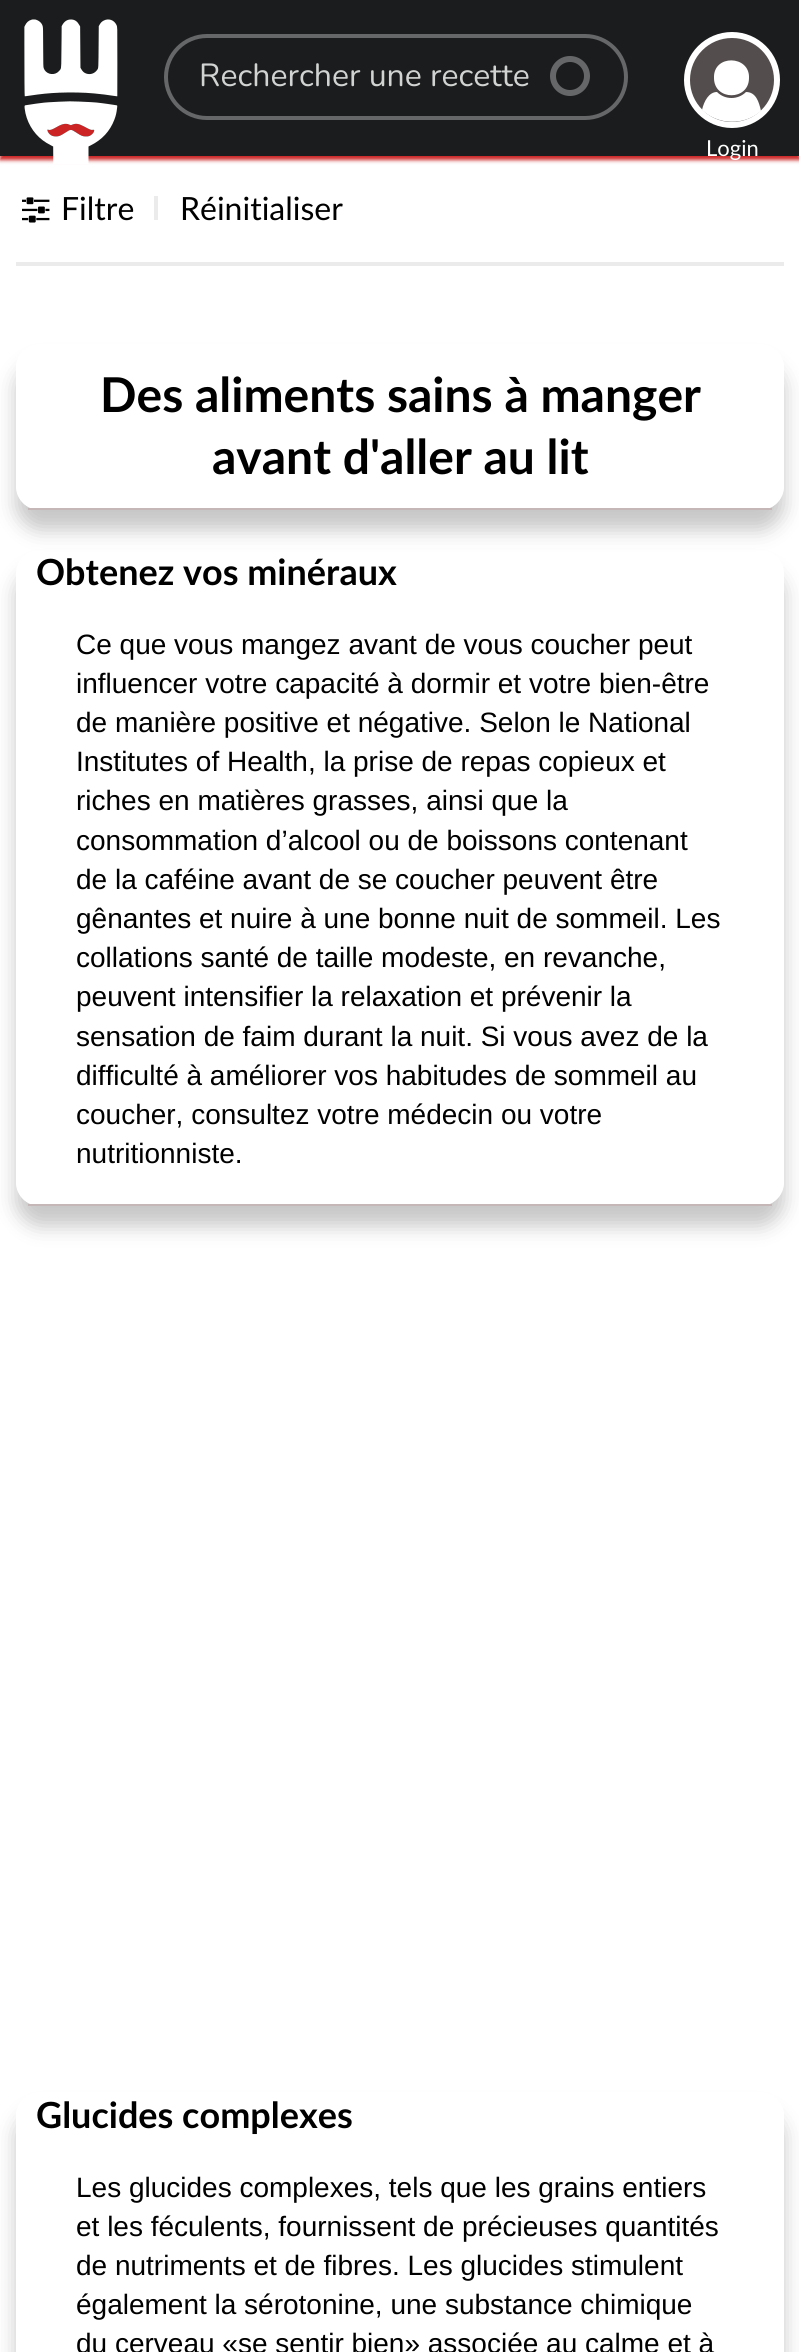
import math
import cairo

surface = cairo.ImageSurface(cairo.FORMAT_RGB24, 799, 2352)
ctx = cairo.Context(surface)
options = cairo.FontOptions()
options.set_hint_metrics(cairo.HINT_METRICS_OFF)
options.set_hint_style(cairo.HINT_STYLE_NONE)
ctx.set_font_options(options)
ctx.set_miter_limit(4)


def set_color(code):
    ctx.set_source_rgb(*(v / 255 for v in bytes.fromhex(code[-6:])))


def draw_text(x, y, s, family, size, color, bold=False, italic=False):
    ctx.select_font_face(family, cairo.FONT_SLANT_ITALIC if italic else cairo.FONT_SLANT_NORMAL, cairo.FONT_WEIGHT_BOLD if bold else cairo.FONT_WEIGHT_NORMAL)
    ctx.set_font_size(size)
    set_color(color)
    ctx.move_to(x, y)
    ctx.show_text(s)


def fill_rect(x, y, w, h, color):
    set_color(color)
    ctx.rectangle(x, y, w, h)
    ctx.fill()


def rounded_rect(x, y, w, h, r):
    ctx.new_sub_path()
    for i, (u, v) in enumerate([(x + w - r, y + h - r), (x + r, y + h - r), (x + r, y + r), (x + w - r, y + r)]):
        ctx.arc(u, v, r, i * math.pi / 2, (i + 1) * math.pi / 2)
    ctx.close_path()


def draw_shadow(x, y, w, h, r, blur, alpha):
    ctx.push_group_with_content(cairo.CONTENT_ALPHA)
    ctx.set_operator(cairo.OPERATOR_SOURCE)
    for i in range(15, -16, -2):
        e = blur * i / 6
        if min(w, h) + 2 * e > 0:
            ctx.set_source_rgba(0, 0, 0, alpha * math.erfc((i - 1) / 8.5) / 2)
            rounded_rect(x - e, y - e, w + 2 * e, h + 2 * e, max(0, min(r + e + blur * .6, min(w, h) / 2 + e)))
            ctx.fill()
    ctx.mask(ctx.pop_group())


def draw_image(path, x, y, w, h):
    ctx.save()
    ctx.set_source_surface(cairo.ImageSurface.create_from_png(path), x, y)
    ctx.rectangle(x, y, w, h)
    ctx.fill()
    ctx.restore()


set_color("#ffffff")
ctx.paint()
set_color("#cc2424")
draw_shadow(0, 4, 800, 156, 0, 2, 1)
fill_rect(0, 0, 799, 156, "#1b1c1d")
draw_image("assets/img1.png", 24, 19, 94, 145)
ctx.arc(570, 76, 17, 0, 2 * math.pi)
set_color("#666768")
ctx.set_line_width(6)
ctx.stroke()
rounded_rect(166, 36, 460, 82, 41)
ctx.set_line_width(4)
ctx.stroke()
draw_text(199, 86, "Rechercher une recette", "Nunito", 32, "#d1d2d2")
set_color("#544d4d")
ctx.new_path()
ctx.arc(732, 80, 45, 0, 2 * math.pi)
ctx.fill_preserve()
set_color("#ffffff")
ctx.set_line_width(6)
ctx.stroke()
ctx.set_fill_rule(cairo.FILL_RULE_EVEN_ODD)
ctx.new_path()
ctx.move_to(761, 111)
ctx.curve_to(744, 126, 718, 125, 702, 110)
ctx.curve_to(704, 101, 709, 92, 717, 92)
ctx.curve_to(725, 100, 738, 100, 746, 92)
ctx.curve_to(756, 92, 759, 102, 761, 111)
ctx.close_path()
ctx.move_to(749, 78)
ctx.curve_to(750, 55, 713, 54, 714, 78)
ctx.curve_to(714, 101, 749, 101, 749, 78)
ctx.close_path()
ctx.fill()
draw_text(706, 156, "Login", "Lato", 22, "#ffffff")
fill_rect(16, 262, 768, 4, "#ebebeb")
draw_image("assets/img2.png", 22, 197, 28, 26)
draw_text(61, 220, "Filtre", "Lato", 32, "#000000")
fill_rect(154, 196, 4, 24, "#ebebeb")
draw_text(180, 220, "Réinitialiser", "Lato", 32, "#000000")
ctx.save()
ctx.new_path()
ctx.move_to(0, 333)
ctx.line_to(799, 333)
ctx.line_to(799, 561)
ctx.line_to(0, 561)
ctx.close_path()
ctx.move_to(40, 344)
ctx.line_to(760, 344)
ctx.curve_to(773.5, 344, 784, 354.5, 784, 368)
ctx.line_to(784, 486)
ctx.curve_to(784, 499.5, 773.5, 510, 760, 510)
ctx.line_to(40, 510)
ctx.curve_to(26.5, 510, 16, 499.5, 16, 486)
ctx.line_to(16, 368)
ctx.curve_to(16, 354.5, 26.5, 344, 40, 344)
ctx.close_path()
ctx.clip()
set_color("#000000")
draw_shadow(16, 364, 768, 166, 24, 10, 0.22)
ctx.restore()
fill_rect(28, 508, 744, 2, "#c5b7b7")
draw_text(100, 412, "Des aliments sains à manger", "Lato", 48, "#000000", bold=True)
draw_text(212, 474, "avant d'aller au lit", "Lato", 48, "#000000", bold=True)
ctx.save()
ctx.new_path()
ctx.move_to(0, 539)
ctx.line_to(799, 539)
ctx.line_to(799, 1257)
ctx.line_to(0, 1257)
ctx.close_path()
ctx.move_to(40, 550)
ctx.line_to(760, 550)
ctx.curve_to(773.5, 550, 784, 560.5, 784, 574)
ctx.line_to(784, 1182)
ctx.curve_to(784, 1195.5, 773.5, 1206, 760, 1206)
ctx.line_to(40, 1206)
ctx.curve_to(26.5, 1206, 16, 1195.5, 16, 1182)
ctx.line_to(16, 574)
ctx.curve_to(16, 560.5, 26.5, 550, 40, 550)
ctx.close_path()
ctx.clip()
set_color("#000000")
draw_shadow(16, 570, 768, 656, 24, 10, 0.22)
ctx.restore()
fill_rect(28, 1204, 744, 2, "#c5b7b7")
draw_text(36, 585, "Obtenez vos minéraux", "Lato", 36, "#000000", bold=True)
draw_text(76, 654, "Ce que vous mangez avant de vous coucher peut", "Liberation Sans", 28, "#000000")
draw_text(76, 693, "influencer votre capacité à dormir et votre bien-être", "Liberation Sans", 28, "#000000")
draw_text(76, 732, "de manière positive et négative. Selon le National", "Liberation Sans", 28, "#000000")
draw_text(76, 771, "Institutes of Health, la prise de repas copieux et", "Liberation Sans", 28, "#000000")
draw_text(76, 810, "riches en matières grasses, ainsi que la", "Liberation Sans", 28, "#000000")
draw_text(76, 850, "consommation d’alcool ou de boissons contenant", "Liberation Sans", 28, "#000000")
draw_text(76, 889, "de la caféine avant de se coucher peuvent être", "Liberation Sans", 28, "#000000")
draw_text(76, 928, "gênantes et nuire à une bonne nuit de sommeil. Les", "Liberation Sans", 28, "#000000")
draw_text(76, 967, "collations santé de taille modeste, en revanche,", "Liberation Sans", 28, "#000000")
draw_text(76, 1006, "peuvent intensifier la relaxation et prévenir la", "Liberation Sans", 28, "#000000")
draw_text(76, 1046, "sensation de faim durant la nuit. Si vous avez de la", "Liberation Sans", 28, "#000000")
draw_text(76, 1085, "difficulté à améliorer vos habitudes de sommeil au", "Liberation Sans", 28, "#000000")
draw_text(76, 1124, "coucher, consultez votre médecin ou votre", "Liberation Sans", 28, "#000000")
draw_text(76, 1163, "nutritionniste.", "Liberation Sans", 28, "#000000")
ctx.save()
ctx.new_path()
ctx.move_to(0, 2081)
ctx.line_to(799, 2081)
ctx.line_to(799, 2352)
ctx.line_to(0, 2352)
ctx.close_path()
ctx.move_to(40, 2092)
ctx.line_to(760, 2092)
ctx.curve_to(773.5, 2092, 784, 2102.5, 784, 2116)
ctx.line_to(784, 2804)
ctx.curve_to(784, 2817.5, 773.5, 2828, 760, 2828)
ctx.line_to(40, 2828)
ctx.curve_to(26.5, 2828, 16, 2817.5, 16, 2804)
ctx.line_to(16, 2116)
ctx.curve_to(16, 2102.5, 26.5, 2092, 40, 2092)
ctx.close_path()
ctx.clip()
set_color("#000000")
draw_shadow(16, 2112, 768, 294, 24, 10, 0.22)
ctx.restore()
draw_text(36, 2128, "Glucides complexes", "Lato", 36, "#000000", bold=True)
draw_text(76, 2197, "Les glucides complexes, tels que les grains entiers", "Liberation Sans", 28, "#000000")
draw_text(76, 2236, "et les féculents, fournissent de précieuses quantités", "Liberation Sans", 28, "#000000")
draw_text(76, 2275, "de nutriments et de fibres. Les glucides stimulent", "Liberation Sans", 28, "#000000")
draw_text(76, 2314, "également la sérotonine, une substance chimique", "Liberation Sans", 28, "#000000")
draw_text(76, 2353, "du cerveau «se sentir bien» associée au calme et à", "Liberation Sans", 28, "#000000")
surface.write_to_png("output.png")
